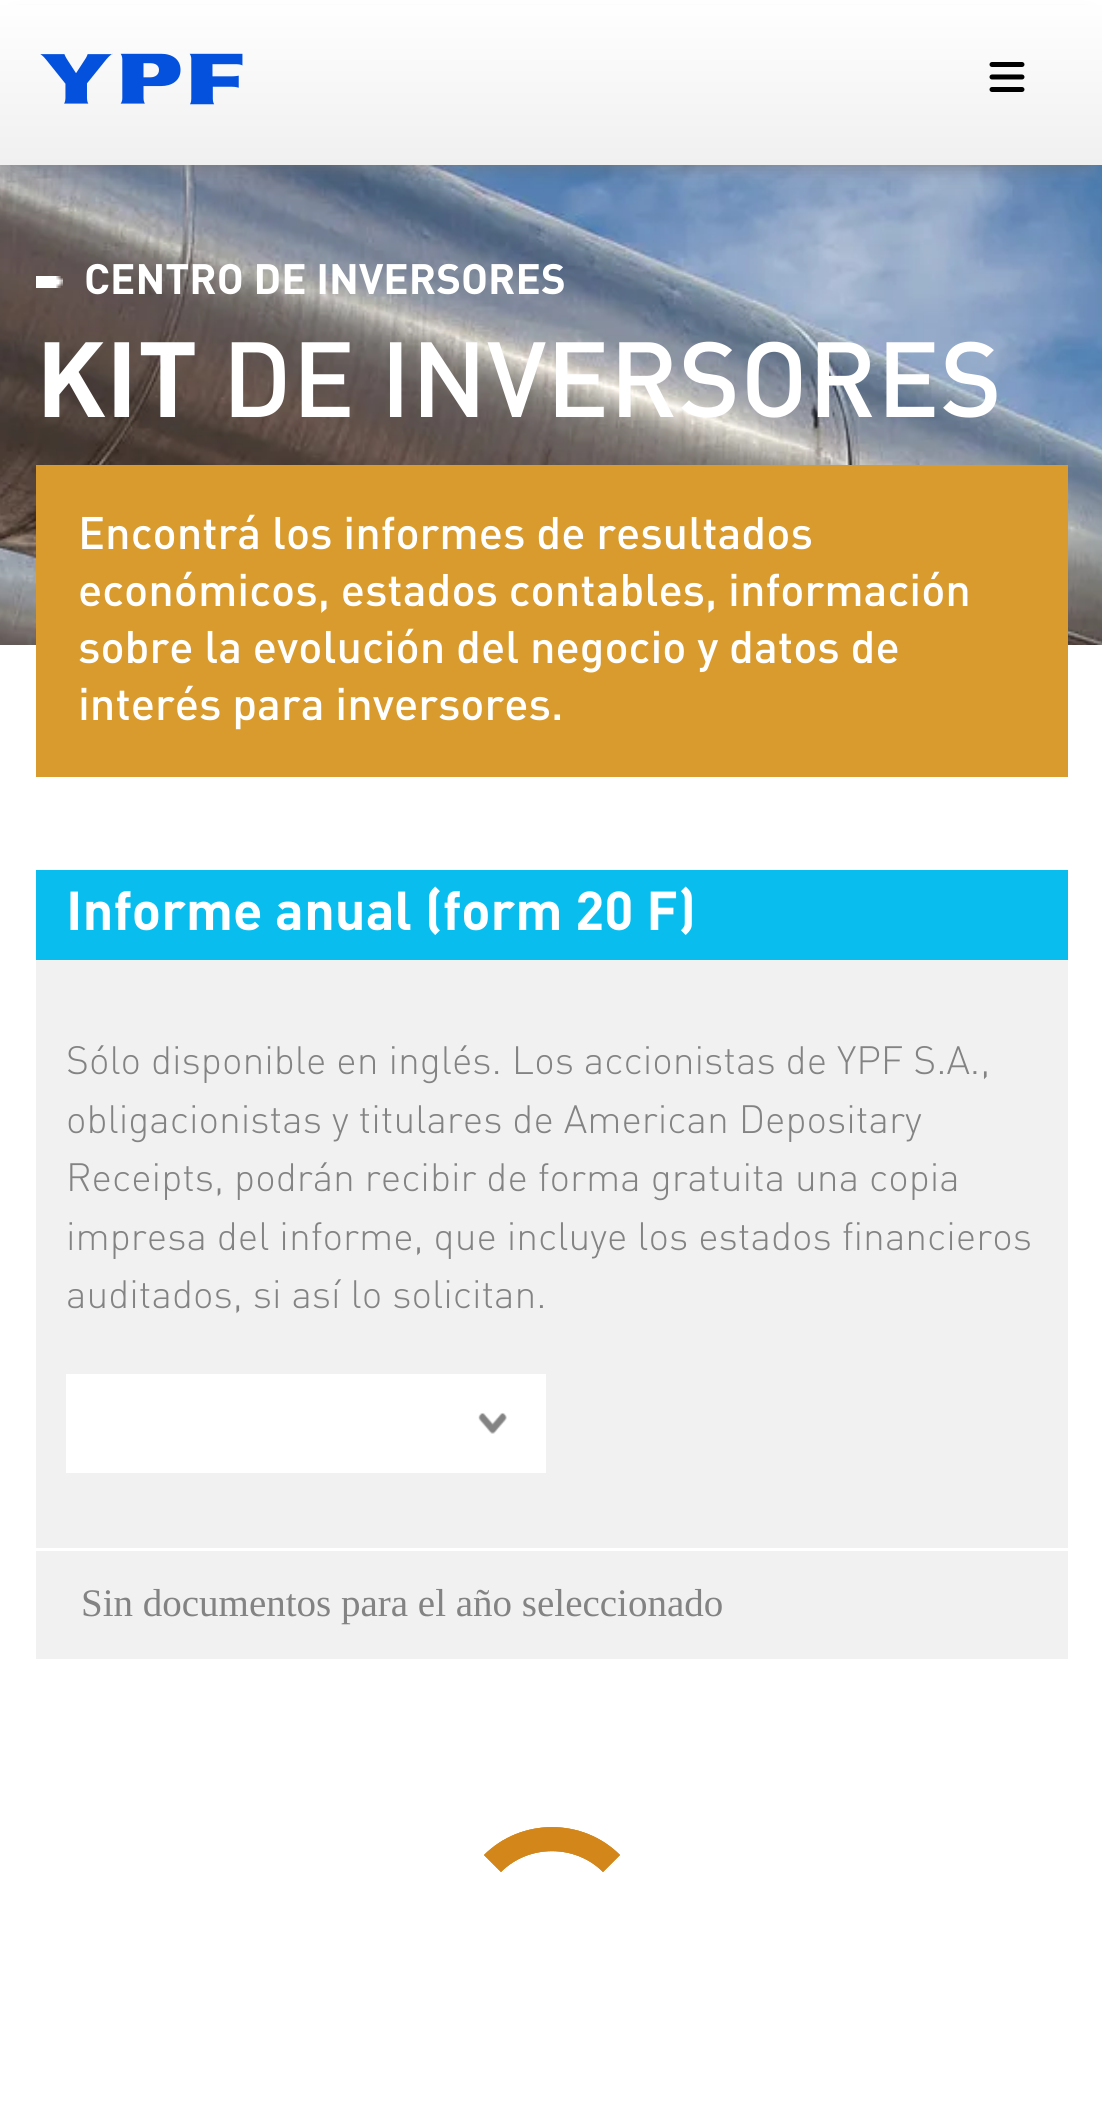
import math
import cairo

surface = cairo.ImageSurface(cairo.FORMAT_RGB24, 1102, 2120)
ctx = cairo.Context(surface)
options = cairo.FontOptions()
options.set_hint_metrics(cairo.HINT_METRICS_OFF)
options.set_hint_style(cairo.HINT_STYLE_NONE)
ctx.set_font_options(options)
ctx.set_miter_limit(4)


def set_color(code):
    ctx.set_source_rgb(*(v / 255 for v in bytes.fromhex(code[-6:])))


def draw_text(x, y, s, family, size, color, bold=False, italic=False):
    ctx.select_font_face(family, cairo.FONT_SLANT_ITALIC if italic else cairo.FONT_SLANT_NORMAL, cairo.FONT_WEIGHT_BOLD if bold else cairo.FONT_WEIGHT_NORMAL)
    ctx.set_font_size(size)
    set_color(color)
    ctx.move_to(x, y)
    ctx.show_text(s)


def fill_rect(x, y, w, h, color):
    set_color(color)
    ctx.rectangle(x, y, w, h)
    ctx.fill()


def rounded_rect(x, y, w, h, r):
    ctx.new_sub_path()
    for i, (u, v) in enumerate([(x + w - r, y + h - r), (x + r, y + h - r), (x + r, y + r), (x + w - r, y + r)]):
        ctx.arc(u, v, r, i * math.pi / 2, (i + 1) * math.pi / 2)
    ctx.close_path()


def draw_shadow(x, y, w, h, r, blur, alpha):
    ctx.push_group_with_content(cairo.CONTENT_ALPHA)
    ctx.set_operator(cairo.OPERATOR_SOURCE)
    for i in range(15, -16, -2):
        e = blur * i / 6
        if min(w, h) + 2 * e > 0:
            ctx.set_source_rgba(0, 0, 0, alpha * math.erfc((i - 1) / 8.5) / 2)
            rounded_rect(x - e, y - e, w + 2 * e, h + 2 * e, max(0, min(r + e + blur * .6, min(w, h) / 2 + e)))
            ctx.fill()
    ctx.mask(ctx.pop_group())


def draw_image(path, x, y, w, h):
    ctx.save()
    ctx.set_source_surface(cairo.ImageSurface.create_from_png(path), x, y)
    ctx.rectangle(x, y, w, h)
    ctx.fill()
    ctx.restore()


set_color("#ffffff")
ctx.paint()
draw_image("assets/img3.png", 0, 165, 1102, 480)
set_color("#777777")
draw_shadow(15, 27, 1074, 135, 0, 10.5, 1)
gradient = cairo.LinearGradient(552, 0, 552, 165)
gradient.add_color_stop_rgba(0, 1, 1, 1, 1)
gradient.add_color_stop_rgba(1, 0.941, 0.941, 0.941, 1)
ctx.set_source(gradient)
ctx.rectangle(0, 5, 1102, 160)
ctx.fill()
draw_image("assets/img1.png", 40, 53, 203, 52)
draw_image("assets/img2.png", 989, 62, 36, 30)
draw_image("assets/img4.png", 36, 276, 27, 12)
draw_text(84, 294, "CENTRO DE INVERSORES", "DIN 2", 42, "#ffffff", bold=True)
draw_text(36, 417, "KIT", "DIN", 105, "#ffffff", bold=True)
draw_text(222, 417, "DE INVERSORES", "DIN Medium", 105, "#ffffff")
fill_rect(36, 465, 1032, 312, "#d99b2d")
draw_text(78, 549, "Encontrá los informes de resultados", "DIN Medium", 45, "#ffffff")
draw_text(78, 606, "económicos, estados contables, información", "DIN Medium", 45, "#ffffff")
draw_text(78, 663, "sobre la evolución del negocio y datos de", "DIN Medium", 45, "#ffffff")
draw_text(78, 720, "interés para inversores.", "DIN Medium", 45, "#ffffff")
fill_rect(36, 960, 1032, 699, "#f2f1f1")
fill_rect(36, 870, 1032, 90, "#09bdee")
draw_text(66, 930, "Informe anual (form 20 F)", "DIN", 54, "#ffffff", bold=True)
draw_text(66, 1074, "Sólo disponible en inglés. Los accionistas de YPF S.A.,", "DIN Light", 39, "#838383")
draw_text(66, 1133, "obligacionistas y titulares de American Depositary", "DIN Light", 39, "#838383")
draw_text(66, 1191, "Receipts, podrán recibir de forma gratuita una copia", "DIN Light", 39, "#838383")
draw_text(66, 1250, "impresa del informe, que incluye los estados financieros", "DIN Light", 39, "#838383")
draw_text(66, 1308, "auditados, si así lo solicitan.", "DIN Light", 39, "#838383")
fill_rect(66, 1374, 480, 99, "#ffffff")
draw_image("assets/img5.png", 478, 1412, 29, 22)
fill_rect(36, 1548, 1032, 3, "#ffffff")
draw_text(81, 1616, "Sin documentos para el año seleccionado", "Liberation Serif", 39, "#838383")
ctx.new_path()
ctx.move_to(492.5, 1863.5)
ctx.curve_to(525, 1831, 579, 1831, 611.5, 1863.5)
set_color("#dfa75a")
ctx.set_line_width(24)
ctx.stroke()
ctx.new_path()
ctx.move_to(492.5, 1863.5)
ctx.curve_to(525, 1831, 579, 1831, 611.5, 1863.5)
ctx.set_source_rgba(0.827, 0.522, 0.098, 0.72)
ctx.stroke()
ctx.new_path()
ctx.move_to(492.5, 1863.5)
ctx.curve_to(525, 1831, 579, 1831, 611.5, 1863.5)
ctx.stroke()
ctx.new_path()
ctx.move_to(492.5, 1863.5)
ctx.curve_to(525, 1831, 579, 1831, 611.5, 1863.5)
ctx.stroke()
surface.write_to_png("output.png")
